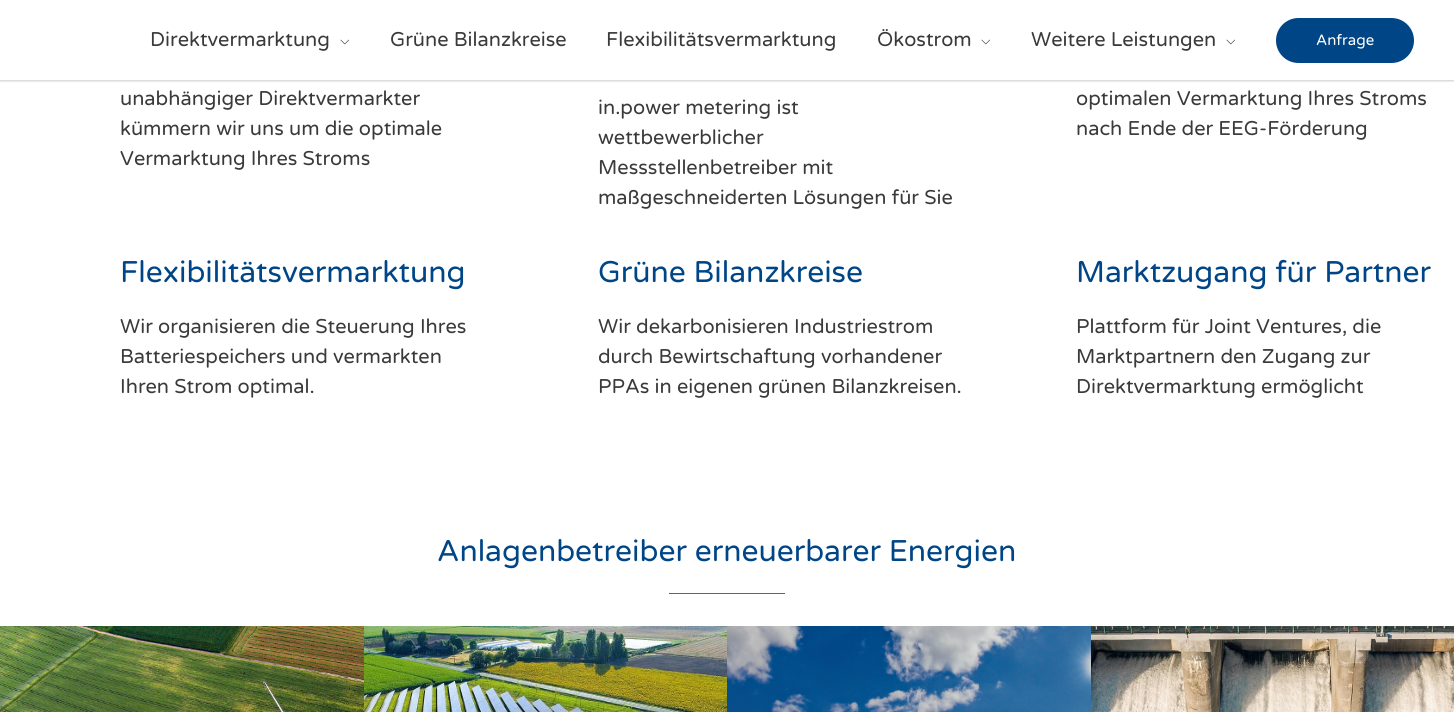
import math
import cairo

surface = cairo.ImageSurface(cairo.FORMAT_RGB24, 1454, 712)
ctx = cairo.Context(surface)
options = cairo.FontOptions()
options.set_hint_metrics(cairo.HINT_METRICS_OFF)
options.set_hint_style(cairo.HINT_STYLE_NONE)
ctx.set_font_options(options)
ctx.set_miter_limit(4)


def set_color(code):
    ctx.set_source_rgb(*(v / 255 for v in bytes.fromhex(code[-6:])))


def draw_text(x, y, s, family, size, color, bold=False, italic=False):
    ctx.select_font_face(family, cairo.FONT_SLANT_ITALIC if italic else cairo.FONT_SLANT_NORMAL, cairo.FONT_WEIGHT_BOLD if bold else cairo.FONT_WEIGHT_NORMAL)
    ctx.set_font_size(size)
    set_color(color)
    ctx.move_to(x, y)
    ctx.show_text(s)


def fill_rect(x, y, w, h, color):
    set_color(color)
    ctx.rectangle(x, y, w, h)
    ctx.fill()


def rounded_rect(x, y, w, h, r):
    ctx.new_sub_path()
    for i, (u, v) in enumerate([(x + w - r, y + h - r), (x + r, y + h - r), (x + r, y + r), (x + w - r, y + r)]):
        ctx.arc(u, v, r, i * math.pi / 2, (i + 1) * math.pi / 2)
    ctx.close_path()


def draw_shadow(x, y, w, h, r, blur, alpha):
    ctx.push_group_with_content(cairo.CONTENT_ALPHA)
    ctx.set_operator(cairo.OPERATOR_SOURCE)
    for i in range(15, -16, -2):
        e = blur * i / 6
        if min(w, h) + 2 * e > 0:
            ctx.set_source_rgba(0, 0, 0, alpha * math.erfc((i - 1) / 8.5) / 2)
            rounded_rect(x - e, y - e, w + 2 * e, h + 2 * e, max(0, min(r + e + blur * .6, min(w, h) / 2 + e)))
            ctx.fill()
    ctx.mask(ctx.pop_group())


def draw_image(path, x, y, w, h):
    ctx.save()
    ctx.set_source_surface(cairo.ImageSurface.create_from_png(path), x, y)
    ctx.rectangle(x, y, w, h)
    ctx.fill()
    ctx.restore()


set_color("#ffffff")
ctx.paint()
set_color("#000000")
draw_shadow(0, 1, 1454, 80, 0, 1, 0.2)
fill_rect(0, 0, 1454, 80, "#ffffff")
draw_text(150, 46, "Direktvermarktung", "Varela Round", 20, "#3a3a3a")
draw_image("assets/img1.png", 340, 39, 9, 6)
draw_text(390, 46, "Grüne Bilanzkreise", "Varela Round", 20, "#3a3a3a")
draw_text(606, 46, "Flexibilitätsvermarktung", "Varela Round", 20, "#3a3a3a")
draw_text(877, 46, "Ökostrom", "Varela Round", 20, "#3a3a3a")
draw_image("assets/img1.png", 981, 39, 9, 6)
draw_text(1031, 46, "Weitere Leistungen", "Varela Round", 20, "#3a3a3a")
draw_image("assets/img1.png", 1226, 39, 9, 6)
set_color("#004687")
rounded_rect(1276, 18, 138, 45, 22.5)
ctx.fill()
draw_text(1316, 45, "Anfrage", "Varela Round", 15, "#ffffff")
draw_text(120, 105, "unabhängiger Direktvermarkter", "Varela Round", 20, "#3a3a3a")
draw_text(120, 135, "kümmern wir uns um die optimale", "Varela Round", 20, "#3a3a3a")
draw_text(120, 165, "Vermarktung Ihres Stroms", "Varela Round", 20, "#3a3a3a")
draw_text(598, 114, "in.power metering ist", "Varela Round", 20, "#3a3a3a")
draw_text(598, 144, "wettbewerblicher", "Varela Round", 20, "#3a3a3a")
draw_text(598, 174, "Messstellenbetreiber mit", "Varela Round", 20, "#3a3a3a")
draw_text(598, 204, "maßgeschneiderten Lösungen für Sie", "Varela Round", 20, "#3a3a3a")
draw_text(1076, 105, "optimalen Vermarktung Ihres Stroms", "Varela Round", 20, "#3a3a3a")
draw_text(1076, 135, "nach Ende der EEG-Förderung", "Varela Round", 20, "#3a3a3a")
draw_text(120, 282, "Flexibilitätsvermarktung", "Varela Round", 30, "#004687")
draw_text(120, 333, "Wir organisieren die Steuerung Ihres", "Varela Round", 20, "#3a3a3a")
draw_text(120, 363, "Batteriespeichers und vermarkten", "Varela Round", 20, "#3a3a3a")
draw_text(120, 393, "Ihren Strom optimal.", "Varela Round", 20, "#3a3a3a")
draw_text(598, 282, "Grüne Bilanzkreise", "Varela Round", 30, "#004687")
draw_text(598, 333, "Wir dekarbonisieren Industriestrom", "Varela Round", 20, "#3a3a3a")
draw_text(598, 363, "durch Bewirtschaftung vorhandener", "Varela Round", 20, "#3a3a3a")
draw_text(598, 393, "PPAs in eigenen grünen Bilanzkreisen.", "Varela Round", 20, "#3a3a3a")
draw_text(1076, 282, "Marktzugang für Partner", "Varela Round", 30, "#004687")
draw_text(1076, 333, "Plattform für Joint Ventures, die", "Varela Round", 20, "#3a3a3a")
draw_text(1076, 363, "Marktpartnern den Zugang zur", "Varela Round", 20, "#3a3a3a")
draw_text(1076, 393, "Direktvermarktung ermöglicht", "Varela Round", 20, "#3a3a3a")
draw_text(437, 561, "Anlagenbetreiber erneuerbarer Energien", "Varela Round", 30, "#004687")
fill_rect(669, 593, 116, 1, "#4064d7")
draw_image("assets/img2.png", 0, 626, 364, 86)
draw_image("assets/img3.png", 364, 626, 363, 86)
draw_image("assets/img4.png", 727, 626, 364, 86)
draw_image("assets/img5.png", 1091, 626, 363, 86)
surface.write_to_png("output.png")
